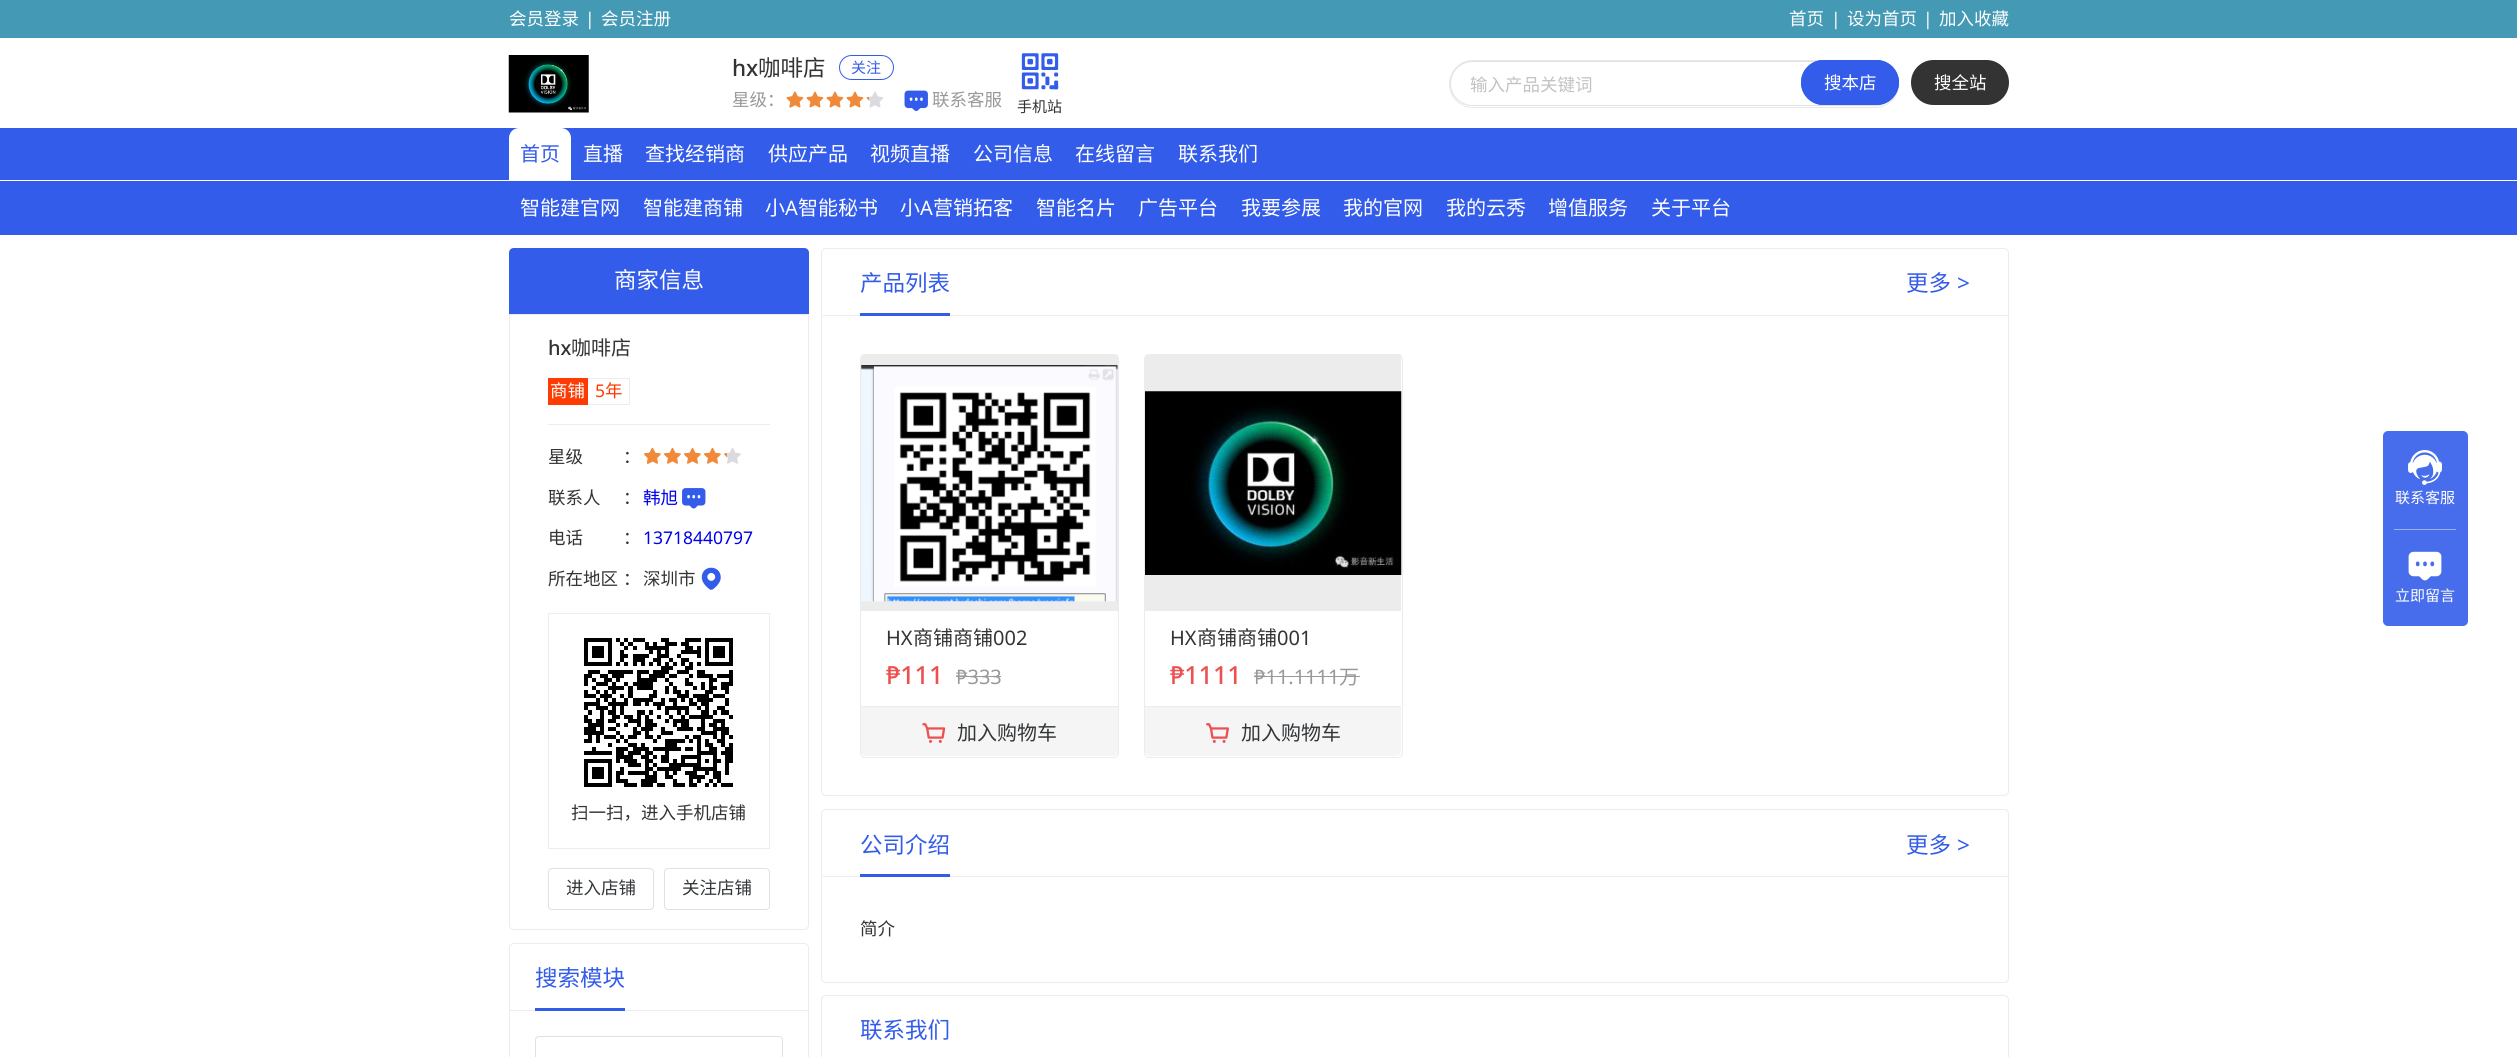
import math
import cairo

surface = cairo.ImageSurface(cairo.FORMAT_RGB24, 2517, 1057)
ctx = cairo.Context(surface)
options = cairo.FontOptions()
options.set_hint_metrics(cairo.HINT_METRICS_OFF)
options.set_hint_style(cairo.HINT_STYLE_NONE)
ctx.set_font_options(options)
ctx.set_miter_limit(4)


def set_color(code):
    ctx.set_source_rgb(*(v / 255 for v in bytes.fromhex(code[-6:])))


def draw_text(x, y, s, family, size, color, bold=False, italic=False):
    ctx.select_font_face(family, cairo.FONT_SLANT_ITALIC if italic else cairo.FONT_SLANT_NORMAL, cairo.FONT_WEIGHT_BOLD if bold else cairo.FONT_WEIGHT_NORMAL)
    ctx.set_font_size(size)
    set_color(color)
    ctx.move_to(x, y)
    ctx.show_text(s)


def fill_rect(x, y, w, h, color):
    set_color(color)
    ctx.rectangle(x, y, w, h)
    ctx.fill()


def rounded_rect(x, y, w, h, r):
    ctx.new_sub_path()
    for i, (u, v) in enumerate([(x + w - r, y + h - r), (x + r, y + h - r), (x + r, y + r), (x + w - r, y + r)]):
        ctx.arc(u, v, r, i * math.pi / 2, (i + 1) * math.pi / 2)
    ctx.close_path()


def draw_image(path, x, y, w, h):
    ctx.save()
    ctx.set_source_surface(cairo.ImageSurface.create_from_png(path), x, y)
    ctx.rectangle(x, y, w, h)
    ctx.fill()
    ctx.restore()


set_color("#ffffff")
ctx.paint()
fill_rect(0, 0, 2517, 38, "#449ab5")
draw_text(509, 25, "会员登录", "Noto Sans CJK SC", 17.5, "#ffffff")
draw_text(585, 25, "|", "Noto Sans", 17.5, "#ffffff")
draw_text(601, 25, "会员注册", "Noto Sans CJK SC", 17.5, "#ffffff")
draw_text(1789, 25, "首页", "Noto Sans CJK SC", 17.5, "#ffffff")
draw_text(1831, 25, "|", "Noto Sans", 17.5, "#ffffff")
draw_text(1847, 25, "设为首页", "Noto Sans CJK SC", 17.5, "#ffffff")
draw_text(1923, 25, "|", "Noto Sans", 17.5, "#ffffff")
draw_text(1939, 25, "加入收藏", "Noto Sans CJK SC", 17.5, "#ffffff")
draw_image("assets/img1.png", 508, 55, 81, 58)
draw_text(732, 76, "hx", "Noto Sans Medium", 22.5, "#333333")
draw_text(758, 76, "咖啡店", "Noto Sans CJK SC", 22.5, "#333333")
rounded_rect(839.5, 55.5, 54, 24, 12)
set_color("#335cea")
ctx.set_line_width(1)
ctx.stroke()
draw_text(851, 73, "关注", "Noto Sans CJK SC", 15, "#335cea")
draw_text(732, 106, "星级：", "Noto Sans CJK SC", 17.5, "#999999")
draw_image("assets/img2.png", 786, 91, 18, 17)
draw_image("assets/img3.png", 786, 91, 9, 17)
draw_image("assets/img2.png", 806, 91, 18, 17)
draw_image("assets/img4.png", 806, 96, 3, 5)
draw_image("assets/img2.png", 826, 91, 18, 17)
draw_image("assets/img4.png", 826, 96, 3, 5)
draw_image("assets/img2.png", 846, 91, 18, 17)
draw_image("assets/img4.png", 846, 96, 3, 5)
draw_image("assets/img5.png", 866, 91, 18, 17)
draw_image("assets/img6.png", 866, 96, 3, 5)
draw_image("assets/img7.png", 904, 90, 24, 21)
draw_text(932, 106, "联系客服", "Noto Sans CJK SC", 17.5, "#999999")
rounded_rect(1449.5, 60.5, 449, 47, 23.5)
set_color("#e8e8e8")
ctx.stroke()
rounded_rect(1450.5, 61.5, 447, 44, 22)
set_color("#e0e0e6")
ctx.stroke()
draw_text(1470, 91, "输入产品关键词", "Noto Sans CJK SC", 17.5, "#c2c2c2")
set_color("#335cea")
rounded_rect(1801, 60, 98, 45, 22.5)
ctx.fill()
rounded_rect(1801.5, 60.5, 97, 44, 22)
ctx.stroke()
draw_text(1824, 89, "搜本店", "Noto Sans CJK SC", 17.5, "#ffffff")
set_color("#333333")
rounded_rect(1911, 60, 98, 45, 22.5)
ctx.fill()
draw_text(1934, 89, "搜全站", "Noto Sans CJK SC", 17.5, "#ffffff")
draw_image("assets/img8.png", 1021, 53, 38, 37)
draw_text(1017, 112, "手机站", "Noto Sans CJK SC", 15, "#333333")
fill_rect(0, 128, 2517, 52, "#335cea")
set_color("#ffffff")
ctx.new_path()
ctx.move_to(519, 128)
ctx.line_to(561, 128)
ctx.curve_to(566.5, 128, 571, 132.5, 571, 138)
ctx.line_to(571, 180)
ctx.line_to(509, 180)
ctx.line_to(509, 138)
ctx.curve_to(509, 132.5, 513.5, 128, 519, 128)
ctx.close_path()
ctx.fill()
draw_text(520, 161, "首页", "Noto Sans CJK SC", 20, "#335cea")
draw_text(583, 161, "直播", "Noto Sans CJK SC", 20, "#ffffff")
draw_text(645, 161, "查找经销商", "Noto Sans CJK SC", 20, "#ffffff")
draw_text(768, 161, "供应产品", "Noto Sans CJK SC", 20, "#ffffff")
draw_text(870, 161, "视频直播", "Noto Sans CJK SC", 20, "#ffffff")
draw_text(973, 161, "公司信息", "Noto Sans CJK SC", 20, "#ffffff")
draw_text(1075, 161, "在线留言", "Noto Sans CJK SC", 20, "#ffffff")
draw_text(1178, 161, "联系我们", "Noto Sans CJK SC", 20, "#ffffff")
fill_rect(0, 181, 2517, 54, "#335cea")
draw_text(520, 215, "智能建官网", "Noto Sans CJK SC", 20, "#ffffff")
draw_text(643, 215, "智能建商铺", "Noto Sans CJK SC", 20, "#ffffff")
draw_text(765, 215, "小", "Noto Sans CJK SC", 20, "#ffffff")
draw_text(785, 215, "A", "Noto Sans", 20, "#ffffff")
draw_text(798, 215, "智能秘书", "Noto Sans CJK SC", 20, "#ffffff")
draw_text(900, 215, "小", "Noto Sans CJK SC", 20, "#ffffff")
draw_text(920, 215, "A", "Noto Sans", 20, "#ffffff")
draw_text(933, 215, "营销拓客", "Noto Sans CJK SC", 20, "#ffffff")
draw_text(1036, 215, "智能名片", "Noto Sans CJK SC", 20, "#ffffff")
draw_text(1138, 215, "广告平台", "Noto Sans CJK SC", 20, "#ffffff")
draw_text(1241, 215, "我要参展", "Noto Sans CJK SC", 20, "#ffffff")
draw_text(1343, 215, "我的官网", "Noto Sans CJK SC", 20, "#ffffff")
draw_text(1446, 215, "我的云秀", "Noto Sans CJK SC", 20, "#ffffff")
draw_text(1548, 215, "增值服务", "Noto Sans CJK SC", 20, "#ffffff")
draw_text(1651, 215, "关于平台", "Noto Sans CJK SC", 20, "#ffffff")
rounded_rect(509.5, 248.5, 299, 681, 4.5)
set_color("#ececec")
ctx.stroke()
set_color("#335cea")
ctx.new_path()
ctx.move_to(514, 248)
ctx.line_to(804, 248)
ctx.curve_to(807, 248, 809, 250, 809, 253)
ctx.line_to(809, 315)
ctx.line_to(509, 315)
ctx.line_to(509, 253)
ctx.curve_to(509, 250, 511, 248, 514, 248)
ctx.close_path()
ctx.fill()
fill_rect(509, 314, 300, 1, "#ececec")
draw_text(614, 288, "商家信息", "Noto Sans CJK SC", 22.5, "#ffffff")
draw_text(548, 355, "hx", "Noto Sans Medium", 20, "#333333")
draw_text(571, 355, "咖啡店", "Noto Sans CJK SC", 20, "#333333")
ctx.rectangle(548.5, 378.5, 81, 26)
set_color("#ececec")
ctx.stroke()
fill_rect(548, 378, 40, 27, "#ff3b04")
draw_text(550, 397, "商铺", "Noto Sans CJK SC", 17.5, "#ffffff")
draw_text(595, 397, "5", "Noto Sans", 17.5, "#ff3b04")
draw_text(605, 397, "年", "Noto Sans CJK SC", 17.5, "#ff3b04")
fill_rect(548, 424, 222, 1, "#ececec")
draw_text(548, 463, "星级", "Noto Sans CJK SC", 17.5, "#333333")
draw_text(623, 463, "：", "Noto Sans CJK SC", 17.5, "#333333")
draw_image("assets/img9.png", 644, 447, 17, 17)
draw_image("assets/img10.png", 644, 447, 9, 17)
draw_image("assets/img9.png", 664, 447, 17, 17)
draw_image("assets/img11.png", 664, 453, 3, 5)
draw_image("assets/img9.png", 684, 447, 17, 17)
draw_image("assets/img11.png", 684, 453, 3, 5)
draw_image("assets/img9.png", 704, 447, 17, 17)
draw_image("assets/img11.png", 704, 453, 3, 5)
draw_image("assets/img12.png", 724, 448, 17, 16)
draw_image("assets/img13.png", 724, 453, 3, 5)
draw_text(548, 504, "联系人", "Noto Sans CJK SC", 17.5, "#333333")
draw_text(623, 504, "：", "Noto Sans CJK SC", 17.5, "#333333")
draw_text(643, 504, "韩旭", "Noto Sans CJK SC", 17.5, "#0000ee")
draw_image("assets/img14.png", 682, 488, 24, 21)
draw_text(548, 544, "电话", "Noto Sans CJK SC", 17.5, "#333333")
draw_text(623, 544, "：", "Noto Sans CJK SC", 17.5, "#333333")
draw_text(643, 544, "13718440797", "Noto Sans", 17.5, "#0000ee")
draw_text(548, 585, "所在地区", "Noto Sans CJK SC", 17.5, "#333333")
draw_text(623, 585, "：", "Noto Sans CJK SC", 17.5, "#333333")
draw_text(643, 585, "深圳市", "Noto Sans CJK SC", 17.5, "#333333")
draw_image("assets/img15.png", 701, 567, 20, 23)
ctx.rectangle(548.5, 613.5, 221, 235)
set_color("#ececec")
ctx.stroke()
draw_image("assets/img16.png", 584, 638, 149, 149)
draw_text(571, 819, "扫一扫，进入手机店铺", "Noto Sans CJK SC", 17.5, "#333333")
rounded_rect(548.5, 868.5, 105, 41, 3.5)
set_color("#e0e0e6")
ctx.stroke()
draw_text(566, 894, "进入店铺", "Noto Sans CJK SC", 17.5, "#333639")
rounded_rect(664.5, 868.5, 105, 41, 3.5)
set_color("#e0e0e6")
ctx.stroke()
draw_text(682, 894, "关注店铺", "Noto Sans CJK SC", 17.5, "#333639")
rounded_rect(509.5, 943.5, 299, 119, 4.5)
set_color("#ececec")
ctx.stroke()
fill_rect(510, 1010, 298, 1, "#ececec")
fill_rect(535, 1008, 90, 3, "#335cea")
draw_text(535, 986, "搜索模块", "Noto Sans CJK SC", 22.5, "#335cea")
rounded_rect(535.5, 1036.5, 247, 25, 3.5)
set_color("#e0e0e6")
ctx.stroke()
rounded_rect(821.5, 248.5, 1187, 547, 4.5)
set_color("#ececec")
ctx.stroke()
fill_rect(823, 315, 1185, 1, "#ececec")
fill_rect(860, 313, 90, 3, "#335cea")
draw_text(860, 291, "产品列表", "Noto Sans CJK SC", 22.5, "#335cea")
draw_text(1906, 291, "更多", "Noto Sans CJK SC", 22.5, "#335cea")
draw_text(1957, 291, ">", "Noto Sans", 22.5, "#335cea")
rounded_rect(860.5, 354.5, 258, 403, 4.5)
set_color("#ececec")
ctx.stroke()
fill_rect(861, 355, 257, 256, "#ececec")
draw_image("assets/img17.png", 861, 365, 257, 237)
draw_text(886, 645, "HX", "Noto Sans", 20, "#333333")
draw_text(913, 645, "商铺商铺", "Noto Sans CJK SC", 20, "#333333")
draw_text(993, 645, "002", "Noto Sans", 20, "#333333")
draw_text(886, 684, "₱111", "Noto Sans Medium", 25, "#ec5151")
draw_text(956, 684, "₱333", "Noto Sans", 20, "#999999")
fill_rect(956, 676, 45, 1, "#999999")
set_color("#f5f5f5")
ctx.new_path()
ctx.move_to(861, 706)
ctx.line_to(1118, 706)
ctx.line_to(1118, 751)
ctx.curve_to(1118, 754, 1116, 756, 1113, 756)
ctx.line_to(866, 756)
ctx.curve_to(863, 756, 861, 754, 861, 751)
ctx.close_path()
ctx.fill()
fill_rect(861, 706, 257, 1, "#ececec")
draw_image("assets/img18.png", 922, 723, 24, 20)
draw_text(957, 740, "加入购物车", "Noto Sans CJK SC", 20, "#333639")
rounded_rect(1144.5, 354.5, 258, 403, 4.5)
set_color("#ececec")
ctx.stroke()
fill_rect(1145, 355, 256, 256, "#ececec")
draw_image("assets/img19.png", 1145, 391, 257, 184)
draw_text(1170, 645, "HX", "Noto Sans", 20, "#333333")
draw_text(1197, 645, "商铺商铺", "Noto Sans CJK SC", 20, "#333333")
draw_text(1277, 645, "001", "Noto Sans", 20, "#333333")
draw_text(1170, 684, "₱1111", "Noto Sans Medium", 25, "#ec5151")
draw_text(1254, 684, "₱11.1111", "Noto Sans", 20, "#999999")
fill_rect(1254, 676, 106, 1, "#999999")
draw_text(1339, 684, "万", "Noto Sans CJK SC", 20, "#999999")
set_color("#f5f5f5")
ctx.new_path()
ctx.move_to(1145, 706)
ctx.line_to(1401, 706)
ctx.line_to(1401, 751)
ctx.curve_to(1401, 754, 1399, 756, 1396, 756)
ctx.line_to(1150, 756)
ctx.curve_to(1147, 756, 1145, 754, 1145, 751)
ctx.close_path()
ctx.fill()
fill_rect(1145, 706, 256, 1, "#ececec")
draw_image("assets/img20.png", 1206, 723, 23, 20)
draw_text(1241, 740, "加入购物车", "Noto Sans CJK SC", 20, "#333639")
rounded_rect(821.5, 809.5, 1187, 173, 4.5)
set_color("#ececec")
ctx.stroke()
fill_rect(823, 876, 1185, 1, "#ececec")
fill_rect(860, 874, 90, 3, "#335cea")
draw_text(860, 853, "公司介绍", "Noto Sans CJK SC", 22.5, "#335cea")
draw_text(1906, 853, "更多", "Noto Sans CJK SC", 22.5, "#335cea")
draw_text(1957, 853, ">", "Noto Sans", 22.5, "#335cea")
draw_text(860, 935, "简介", "Noto Sans CJK SC", 17.5, "#333333")
rounded_rect(821.5, 995.5, 1187, 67, 4.5)
set_color("#ececec")
ctx.stroke()
draw_text(860, 1038, "联系我们", "Noto Sans CJK SC", 22.5, "#335cea")
set_color("#476cec")
rounded_rect(2383, 431, 85, 195, 5)
ctx.fill()
draw_image("assets/img21.png", 2408, 450, 34, 35)
draw_text(2395, 503, "联系客服", "Noto Sans CJK SC", 15, "#ffffff")
fill_rect(2394, 529, 62, 1, "#9bb1f5")
draw_image("assets/img22.png", 2408, 551, 34, 30)
draw_text(2395, 601, "立即留言", "Noto Sans CJK SC", 15, "#ffffff")
surface.write_to_png("output.png")
